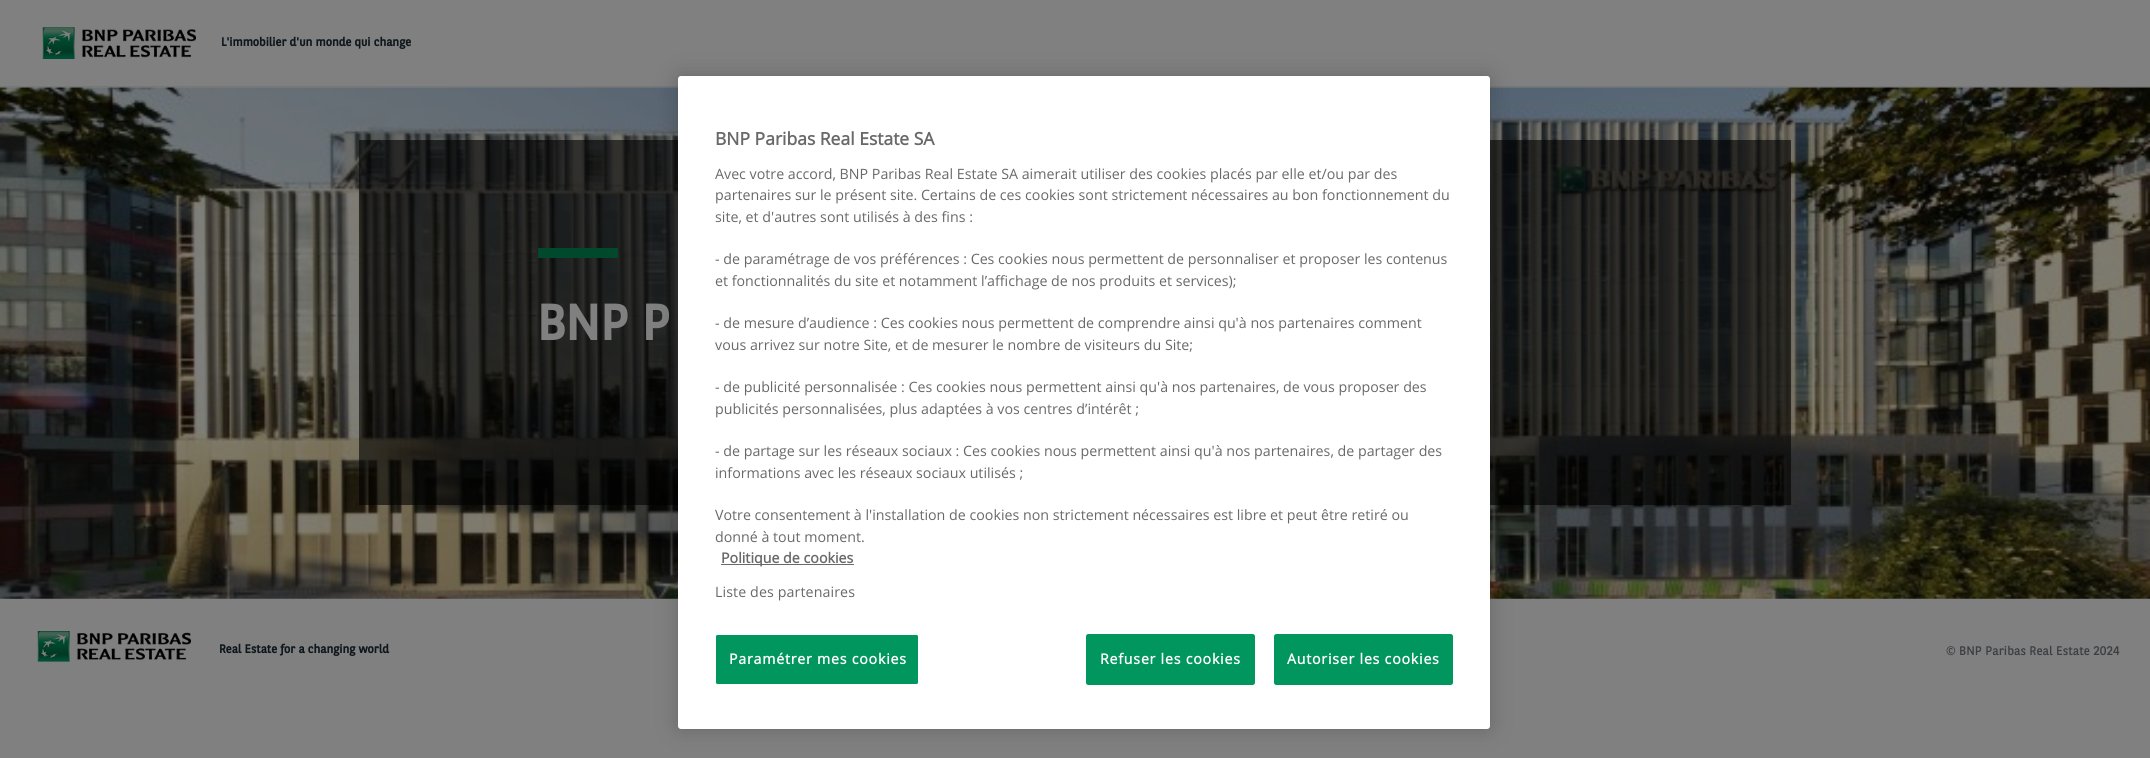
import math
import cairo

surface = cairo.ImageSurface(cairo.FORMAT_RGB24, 2150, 758)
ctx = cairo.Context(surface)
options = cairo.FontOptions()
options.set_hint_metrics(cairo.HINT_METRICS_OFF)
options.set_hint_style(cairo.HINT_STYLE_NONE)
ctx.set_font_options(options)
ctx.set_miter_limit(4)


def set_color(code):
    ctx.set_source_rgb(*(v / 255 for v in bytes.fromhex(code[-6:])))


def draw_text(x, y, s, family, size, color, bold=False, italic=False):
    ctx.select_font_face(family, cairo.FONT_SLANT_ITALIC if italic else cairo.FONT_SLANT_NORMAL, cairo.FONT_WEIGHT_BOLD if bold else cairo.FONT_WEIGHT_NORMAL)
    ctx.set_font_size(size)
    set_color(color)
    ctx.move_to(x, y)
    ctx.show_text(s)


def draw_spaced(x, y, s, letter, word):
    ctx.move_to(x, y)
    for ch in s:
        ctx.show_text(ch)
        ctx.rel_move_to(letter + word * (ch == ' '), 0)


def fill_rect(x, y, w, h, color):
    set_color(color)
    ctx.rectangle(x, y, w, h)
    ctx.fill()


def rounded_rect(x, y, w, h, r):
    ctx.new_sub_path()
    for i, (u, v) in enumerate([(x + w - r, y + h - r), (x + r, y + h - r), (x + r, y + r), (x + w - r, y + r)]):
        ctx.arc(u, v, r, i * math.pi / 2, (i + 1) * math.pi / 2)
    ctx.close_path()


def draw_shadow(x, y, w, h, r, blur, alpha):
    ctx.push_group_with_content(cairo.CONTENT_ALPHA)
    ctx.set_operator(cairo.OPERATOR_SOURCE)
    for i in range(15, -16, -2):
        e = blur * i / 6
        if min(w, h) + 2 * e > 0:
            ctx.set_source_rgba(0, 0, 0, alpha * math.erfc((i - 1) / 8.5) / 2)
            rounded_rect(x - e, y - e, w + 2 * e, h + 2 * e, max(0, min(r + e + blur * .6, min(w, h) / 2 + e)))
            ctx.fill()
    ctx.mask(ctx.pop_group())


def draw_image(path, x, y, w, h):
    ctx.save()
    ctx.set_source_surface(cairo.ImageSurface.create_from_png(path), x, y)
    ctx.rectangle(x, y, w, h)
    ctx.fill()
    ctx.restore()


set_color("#808080")
ctx.paint()
fill_rect(0, 86, 2150, 1, "#767778")
draw_image("assets/img1.png", 42, 27, 154, 32)
draw_text(221, 46, "L'immobilier d'un monde qui change", "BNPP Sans", 12, "#0e171c", bold=True)
draw_image("assets/img2.png", 0, 87, 2150, 512)
ctx.set_source_rgba(0, 0, 0, 0.6)
ctx.rectangle(359, 140, 1432, 365)
ctx.fill()
fill_rect(538, 248, 80, 10, "#00492d")
draw_text(537, 340, "BNP P", "BNPP Sans", 50, "#808080", bold=True)
draw_image("assets/img3.png", 37, 631, 154, 31)
draw_text(219, 653, "Real Estate for a changing world", "BNPP Sans", 12, "#0e171c", bold=True)
draw_text(1946, 655, "© BNP Paribas Real Estate 2024", "BNPP Sans", 12.5, "#3c3f42")
set_color("#000000")
draw_shadow(678, 76, 812, 653, 3, 11, 0.2)
set_color("#ffffff")
rounded_rect(678, 76, 812, 653, 3)
ctx.fill()
draw_text(715, 145, "BNP Paribas Real Estate SA", "Open Sans", 17.5, "#696969", bold=True)
draw_text(715, 179, "Avec votre accord, BNP Paribas Real Estate SA aimerait utiliser des cookies placés par elle et/ou par des", "Open Sans", 14.23, "#696969")
draw_text(715, 200, "partenaires sur le présent site. Certains de ces cookies sont strictement nécessaires au bon fonctionnement du", "Open Sans", 14.23, "#696969")
draw_text(715, 222, "site, et d'autres sont utilisés à des fins :", "Open Sans", 14.23, "#696969")
draw_text(715, 264, "- de paramétrage de vos préférences : Ces cookies nous permettent de personnaliser et proposer les contenus", "Open Sans", 14.23, "#696969")
draw_text(715, 286, "et fonctionnalités du site et notamment l’affichage de nos produits et services);", "Open Sans", 14.23, "#696969")
draw_text(715, 328, "- de mesure d’audience : Ces cookies nous permettent de comprendre ainsi qu'à nos partenaires comment", "Open Sans", 14.23, "#696969")
draw_text(715, 350, "vous arrivez sur notre Site, et de mesurer le nombre de visiteurs du Site;", "Open Sans", 14.23, "#696969")
draw_text(715, 392, "- de publicité personnalisée : Ces cookies nous permettent ainsi qu'à nos partenaires, de vous proposer des", "Open Sans", 14.23, "#696969")
draw_text(715, 414, "publicités personnalisées, plus adaptées à vos centres d’intérêt ;", "Open Sans", 14.23, "#696969")
draw_text(715, 456, "- de partage sur les réseaux sociaux : Ces cookies nous permettent ainsi qu'à nos partenaires, de partager des", "Open Sans", 14.23, "#696969")
draw_text(715, 478, "informations avec les réseaux sociaux utilisés ;", "Open Sans", 14.23, "#696969")
draw_text(715, 520, "Votre consentement à l'installation de cookies non strictement nécessaires est libre et peut être retiré ou", "Open Sans", 14.23, "#696969")
draw_text(715, 542, "donné à tout moment.", "Open Sans", 14.23, "#696969")
fill_rect(721, 564, 133, 1, "#696969")
draw_text(721, 563, "Politique de cookies", "Open Sans", 14.23, "#696969", bold=True)
ctx.select_font_face("Open Sans")
draw_spaced(715, 597, "Liste des partenaires", 0.1, 0)
set_color("#00965e")
rounded_rect(715.5, 634.5, 203, 50, 2)
ctx.fill_preserve()
set_color("#ffffff")
ctx.set_line_width(1)
ctx.stroke()
ctx.select_font_face("Open Sans", cairo.FONT_SLANT_NORMAL, cairo.FONT_WEIGHT_BOLD)
draw_spaced(729, 664, "Paramétrer mes cookies", 0.75, 0)
set_color("#00965e")
rounded_rect(1086.5, 634.5, 168, 50, 2)
ctx.fill_preserve()
ctx.stroke()
set_color("#ffffff")
draw_spaced(1100, 664, "Refuser les cookies", 0.75, 0)
set_color("#00965e")
rounded_rect(1274.5, 634.5, 178, 50, 2)
ctx.fill_preserve()
ctx.stroke()
set_color("#ffffff")
draw_spaced(1287, 664, "Autoriser les cookies", 0.75, 0)
surface.write_to_png("output.png")
